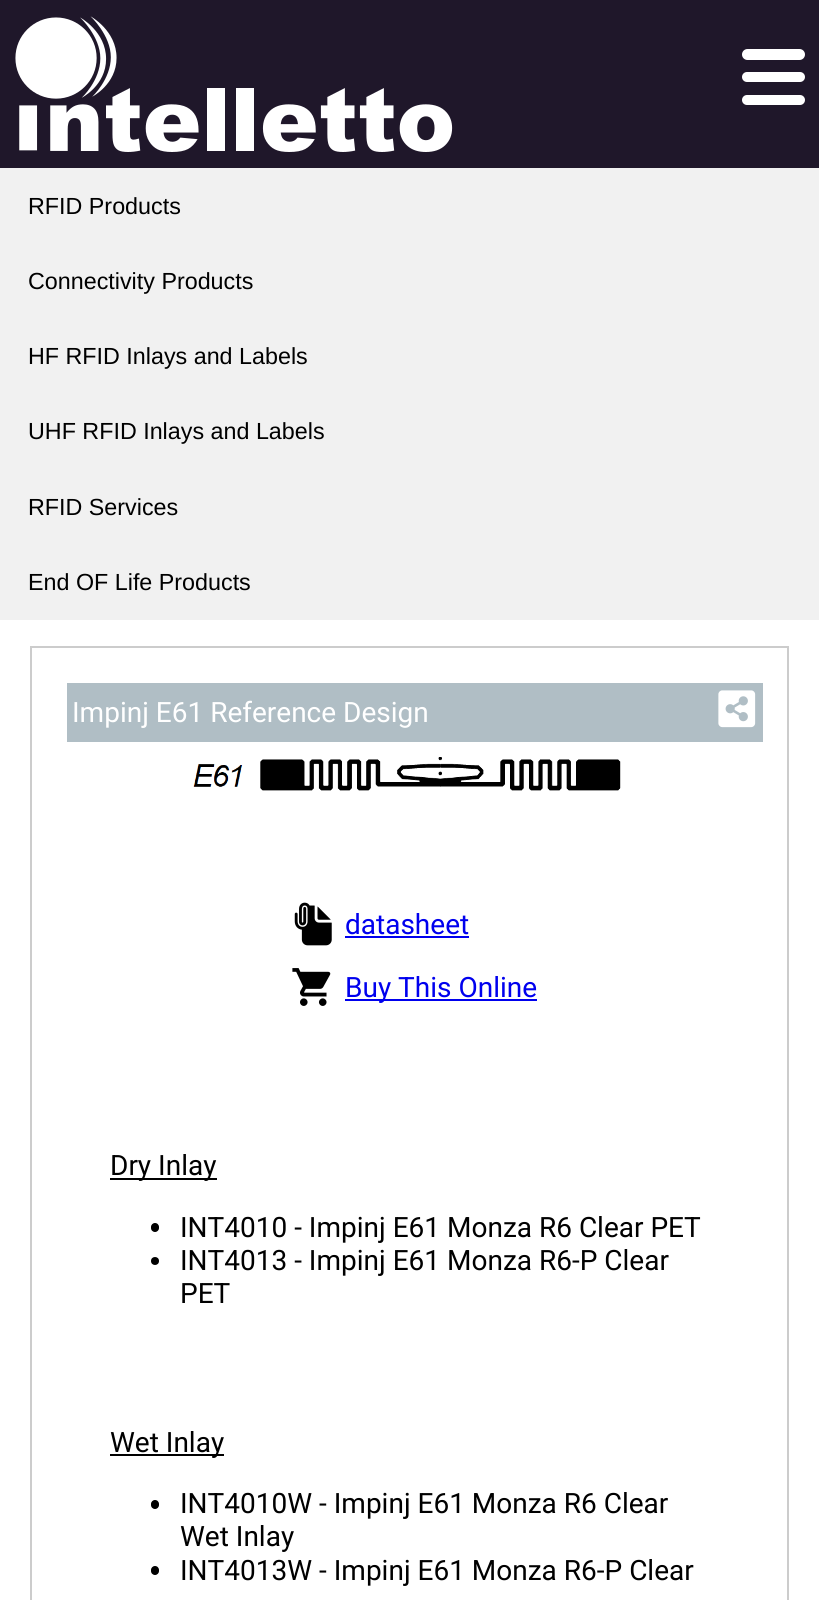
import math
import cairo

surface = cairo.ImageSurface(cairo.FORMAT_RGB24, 819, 1600)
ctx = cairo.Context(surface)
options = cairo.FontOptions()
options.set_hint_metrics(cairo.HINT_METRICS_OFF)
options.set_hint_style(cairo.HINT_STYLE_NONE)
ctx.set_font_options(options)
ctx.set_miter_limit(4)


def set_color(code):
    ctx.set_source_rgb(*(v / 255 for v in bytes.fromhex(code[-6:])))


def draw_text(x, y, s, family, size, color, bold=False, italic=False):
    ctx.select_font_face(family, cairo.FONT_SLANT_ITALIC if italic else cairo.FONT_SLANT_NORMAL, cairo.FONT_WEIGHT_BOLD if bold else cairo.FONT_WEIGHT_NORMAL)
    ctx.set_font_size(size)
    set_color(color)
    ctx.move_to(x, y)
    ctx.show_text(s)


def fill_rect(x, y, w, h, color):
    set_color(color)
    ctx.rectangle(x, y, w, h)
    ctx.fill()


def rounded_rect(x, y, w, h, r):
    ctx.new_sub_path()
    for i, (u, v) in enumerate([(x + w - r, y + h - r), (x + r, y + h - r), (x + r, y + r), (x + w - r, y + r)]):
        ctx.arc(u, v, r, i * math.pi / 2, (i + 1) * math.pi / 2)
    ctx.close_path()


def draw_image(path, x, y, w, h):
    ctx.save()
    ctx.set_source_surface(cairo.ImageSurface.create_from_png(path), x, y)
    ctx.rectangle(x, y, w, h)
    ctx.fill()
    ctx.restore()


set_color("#ffffff")
ctx.paint()
fill_rect(0, 0, 819, 168, "#1f172a")
draw_image("assets/img1.png", 15, 16, 438, 136)
set_color("#ffffff")
rounded_rect(742, 49, 63, 11, 5.5)
ctx.fill()
rounded_rect(742, 72, 63, 10, 5)
ctx.fill()
rounded_rect(742, 95, 63, 10, 5)
ctx.fill()
fill_rect(0, 168, 819, 452, "#f1f1f1")
draw_text(28, 214, "RFID Products", "Liberation Sans", 23.3, "#000000")
draw_text(28, 289, "Connectivity Products", "Liberation Sans", 23.3, "#000000")
draw_text(28, 364, "HF RFID Inlays and Labels", "Liberation Sans", 23.3, "#000000")
draw_text(28, 439, "UHF RFID Inlays and Labels", "Liberation Sans", 23.3, "#000000")
draw_text(28, 515, "RFID Services", "Liberation Sans", 23.3, "#000000")
draw_text(28, 590, "End OF Life Products", "Liberation Sans", 23.3, "#000000")
ctx.rectangle(31, 647, 757, 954)
set_color("#cccccc")
ctx.stroke()
fill_rect(67, 683, 696, 59, "#b0bec5")
draw_text(72, 722, "Impinj E61 Reference Design", "Roboto", 28, "#ffffff")
draw_image("assets/img2.png", 718, 690, 38, 38)
draw_image("assets/img3.png", 193, 757, 428, 34)
draw_image("assets/img4.png", 294, 902, 38, 44)
draw_text(345, 934, "datasheet", "Roboto", 28, "#0000ee")
fill_rect(345, 936, 124, 2, "#0000ee")
draw_image("assets/img5.png", 292, 968, 39, 38)
fill_rect(345, 999, 192, 2, "#0000ee")
draw_text(345, 997, "Buy This Online", "Roboto", 28, "#0000ee")
fill_rect(110, 1178, 107, 2, "#000000")
draw_text(110, 1175, "Dry Inlay", "Roboto", 28, "#000000")
rounded_rect(151, 1223, 8, 9, 4)
ctx.fill()
draw_text(180, 1237, "INT4010 - Impinj E61 Monza R6 Clear PET", "Roboto", 28, "#000000")
ctx.new_path()
ctx.arc(155, 1261, 4, 0, 2 * math.pi)
ctx.fill()
draw_text(180, 1270, "INT4013 - Impinj E61 Monza R6-P Clear", "Roboto", 28, "#000000")
draw_text(180, 1303, "PET", "Roboto", 28, "#000000")
fill_rect(110, 1454, 114, 2, "#000000")
draw_text(110, 1452, "Wet Inlay", "Roboto", 28, "#000000")
rounded_rect(151, 1500, 8, 9, 4)
ctx.fill()
draw_text(180, 1513, "INT4010W - Impinj E61 Monza R6 Clear", "Roboto", 28, "#000000")
draw_text(180, 1546, "Wet Inlay", "Roboto", 28, "#000000")
rounded_rect(151, 1566, 8, 9, 4)
ctx.fill()
draw_text(180, 1580, "INT4013W - Impinj E61 Monza R6-P Clear", "Roboto", 28, "#000000")
surface.write_to_png("output.png")
